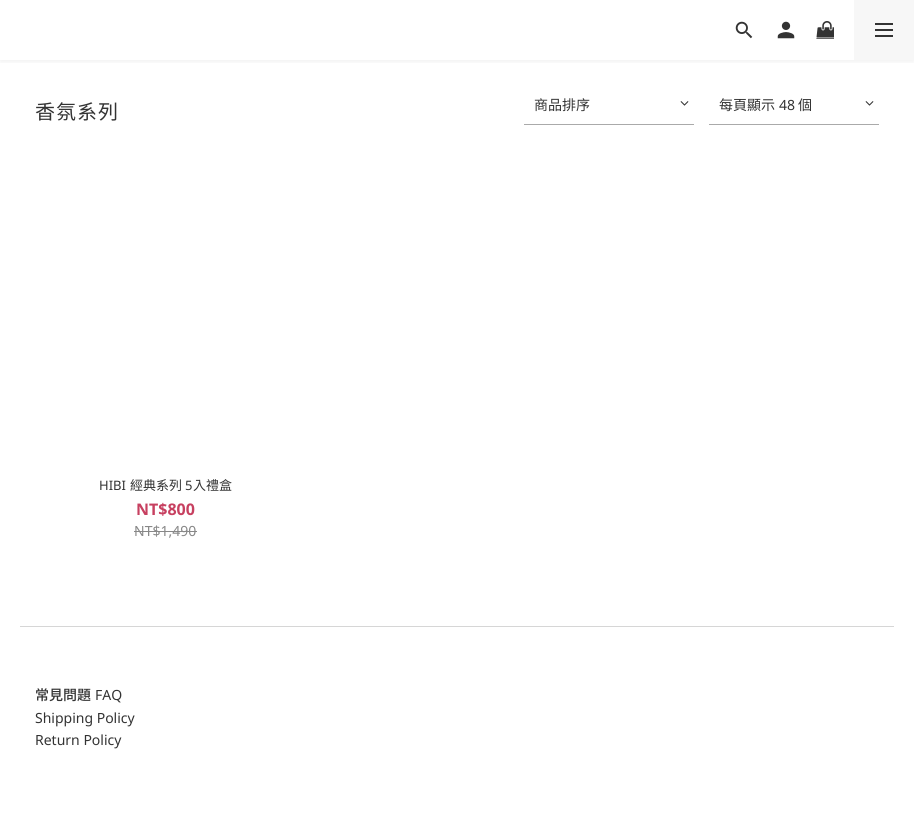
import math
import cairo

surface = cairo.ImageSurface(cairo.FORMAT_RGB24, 914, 823)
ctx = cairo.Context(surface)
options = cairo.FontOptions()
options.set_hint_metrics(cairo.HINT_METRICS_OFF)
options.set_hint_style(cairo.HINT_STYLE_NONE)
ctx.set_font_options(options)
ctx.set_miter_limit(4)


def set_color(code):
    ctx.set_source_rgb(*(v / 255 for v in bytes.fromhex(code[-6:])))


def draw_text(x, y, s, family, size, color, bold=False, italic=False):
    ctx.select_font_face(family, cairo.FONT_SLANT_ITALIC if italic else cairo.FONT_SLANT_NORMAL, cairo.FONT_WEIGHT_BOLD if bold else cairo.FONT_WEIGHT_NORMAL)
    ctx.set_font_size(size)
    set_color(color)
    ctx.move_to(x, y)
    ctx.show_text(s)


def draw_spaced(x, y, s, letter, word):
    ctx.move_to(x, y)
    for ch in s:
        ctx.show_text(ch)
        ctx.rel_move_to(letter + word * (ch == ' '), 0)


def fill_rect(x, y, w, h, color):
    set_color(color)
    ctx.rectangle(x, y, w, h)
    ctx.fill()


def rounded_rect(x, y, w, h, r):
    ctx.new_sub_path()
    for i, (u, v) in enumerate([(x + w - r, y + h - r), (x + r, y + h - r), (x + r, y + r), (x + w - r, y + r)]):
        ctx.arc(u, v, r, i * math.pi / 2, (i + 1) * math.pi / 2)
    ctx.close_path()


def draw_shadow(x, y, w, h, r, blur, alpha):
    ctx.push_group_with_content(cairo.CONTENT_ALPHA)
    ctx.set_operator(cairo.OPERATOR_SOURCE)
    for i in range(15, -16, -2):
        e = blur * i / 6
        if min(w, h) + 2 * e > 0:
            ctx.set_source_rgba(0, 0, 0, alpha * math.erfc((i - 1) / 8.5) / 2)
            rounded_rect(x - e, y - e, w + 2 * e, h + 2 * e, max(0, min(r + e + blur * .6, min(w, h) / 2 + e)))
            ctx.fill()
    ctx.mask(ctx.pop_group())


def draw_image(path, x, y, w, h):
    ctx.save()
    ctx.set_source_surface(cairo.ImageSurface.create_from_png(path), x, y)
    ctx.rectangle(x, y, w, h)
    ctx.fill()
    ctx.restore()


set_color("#ffffff")
ctx.paint()
ctx.save()
ctx.rectangle(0, 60, 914, 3)
ctx.clip()
set_color("#000000")
draw_shadow(0, 2, 914, 60, 0, 3, 0.06)
ctx.restore()
draw_image("assets/img1.png", 735, 21, 18, 18)
draw_image("assets/img2.png", 777, 21, 18, 18)
draw_image("assets/img3.png", 816, 21, 18, 18)
fill_rect(854, 0, 60, 60, "#f7f7f7")
fill_rect(875, 29, 18, 2, "#333333")
fill_rect(875, 23, 18, 2, "#333333")
fill_rect(875, 35, 18, 2, "#333333")
ctx.select_font_face("Noto Sans TC")
ctx.set_font_size(20)
draw_spaced(35, 119, "香氛系列", 1, 0)
draw_text(534, 110, "商品排序", "Noto Sans TC", 14, "#333333")
fill_rect(524, 124, 170, 1, "#aaaaaa")
draw_image("assets/img4.png", 680, 101, 9, 5)
draw_text(719, 110, "每頁顯示", "Noto Sans TC", 14, "#333333")
draw_text(779, 110, "48", "Noto Sans", 14, "#333333")
draw_text(798, 110, "個", "Noto Sans TC", 14, "#333333")
fill_rect(709, 124, 170, 1, "#aaaaaa")
draw_image("assets/img4.png", 865, 101, 9, 5)
draw_text(99, 490, "HIBI", "Noto Sans", 13, "#333333")
draw_text(130, 490, "經典系列", "Noto Sans TC", 13, "#333333")
draw_text(185, 490, "5", "Noto Sans", 13, "#333333")
draw_text(193, 490, "入禮盒", "Noto Sans TC", 13, "#333333")
draw_text(136, 515, "NT$800", "Noto Sans", 16, "#c74060", bold=True)
draw_text(134, 536, "NT$1,490", "Noto Sans", 14, "#888888")
fill_rect(134, 531, 63, 1, "#888888")
fill_rect(20, 626, 874, 1, "#d6d6d6")
draw_text(35, 700, "常見問題", "Noto Sans TC Medium", 14, "#333333")
draw_text(95, 700, "FAQ", "Noto Sans", 14, "#333333")
draw_text(35, 723, "Shipping Policy", "Noto Sans", 14, "#333333")
draw_text(35, 745, "Return Policy", "Noto Sans", 14, "#333333")
surface.write_to_png("output.png")
